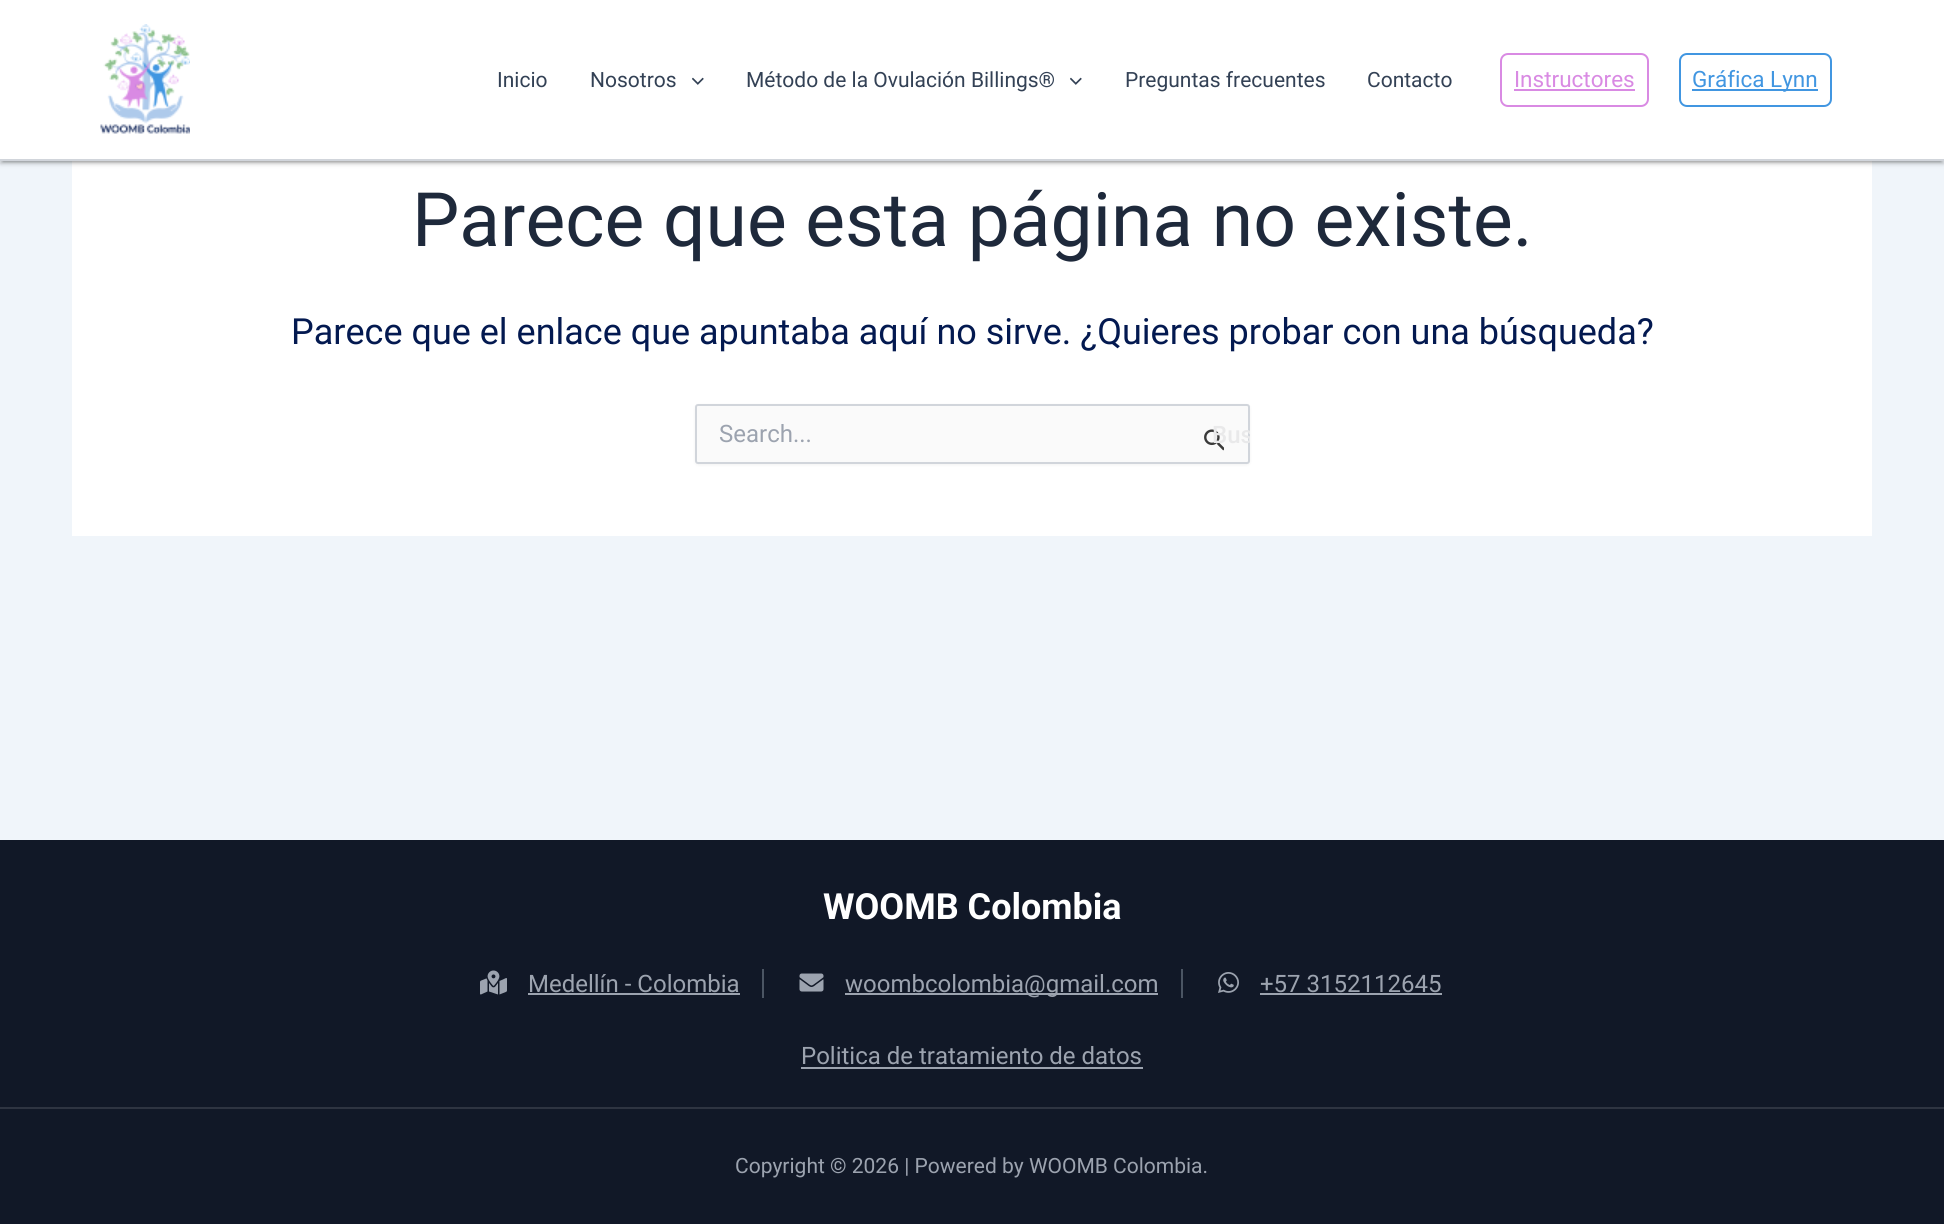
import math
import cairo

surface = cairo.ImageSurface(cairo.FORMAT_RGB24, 1944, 1224)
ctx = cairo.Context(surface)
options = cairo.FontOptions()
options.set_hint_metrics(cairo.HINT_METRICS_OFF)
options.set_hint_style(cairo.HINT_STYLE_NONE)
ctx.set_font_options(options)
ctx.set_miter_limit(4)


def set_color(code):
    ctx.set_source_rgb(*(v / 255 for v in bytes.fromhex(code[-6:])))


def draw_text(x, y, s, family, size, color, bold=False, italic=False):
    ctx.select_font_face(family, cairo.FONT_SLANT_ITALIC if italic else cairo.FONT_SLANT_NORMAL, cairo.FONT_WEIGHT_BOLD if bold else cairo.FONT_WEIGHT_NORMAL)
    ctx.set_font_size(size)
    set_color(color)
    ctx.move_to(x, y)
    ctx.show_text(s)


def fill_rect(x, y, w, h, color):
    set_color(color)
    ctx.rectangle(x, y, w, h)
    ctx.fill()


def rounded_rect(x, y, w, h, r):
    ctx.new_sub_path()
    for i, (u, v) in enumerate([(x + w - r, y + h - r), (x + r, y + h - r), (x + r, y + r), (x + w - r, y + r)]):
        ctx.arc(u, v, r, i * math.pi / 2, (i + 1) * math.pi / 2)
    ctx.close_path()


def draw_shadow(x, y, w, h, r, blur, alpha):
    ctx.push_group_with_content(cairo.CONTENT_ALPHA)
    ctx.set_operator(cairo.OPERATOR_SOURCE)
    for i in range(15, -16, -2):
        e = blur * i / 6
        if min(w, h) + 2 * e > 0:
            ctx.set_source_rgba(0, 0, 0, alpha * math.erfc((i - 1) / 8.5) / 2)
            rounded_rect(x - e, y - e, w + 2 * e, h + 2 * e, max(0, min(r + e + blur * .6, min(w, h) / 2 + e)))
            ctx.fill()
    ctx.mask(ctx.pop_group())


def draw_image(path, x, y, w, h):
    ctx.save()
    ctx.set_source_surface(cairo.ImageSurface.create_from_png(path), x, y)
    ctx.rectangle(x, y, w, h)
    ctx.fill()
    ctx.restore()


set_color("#f0f5fa")
ctx.paint()
fill_rect(72, 161, 1800, 375, "#ffffff")
set_color("#000000")
draw_shadow(0, 2, 1944, 160, 0, 4, 0.12)
draw_shadow(0, 3, 1944, 161, 0, 1.5, 0.14)
draw_shadow(3, 8, 1938, 154, 0, 1, 0.2)
fill_rect(0, 0, 1944, 159, "#ffffff")
fill_rect(0, 159, 1944, 2, "#d1d5db")
draw_image("assets/img1.png", 100, 24, 90, 110)
draw_text(497, 87, "Inicio", "Roboto", 21, "#334155")
draw_text(590, 87, "Nosotros", "Roboto", 21, "#334155")
draw_image("assets/img2.png", 692, 77, 12, 8)
draw_text(746, 87, "Método de la Ovulación Billings®", "Roboto", 21, "#334155")
draw_image("assets/img2.png", 1070, 77, 12, 8)
draw_text(1125, 87, "Preguntas frecuentes", "Roboto", 21, "#334155")
draw_text(1367, 87, "Contacto", "Roboto", 21, "#334155")
rounded_rect(1501, 54, 147, 52, 7)
set_color("#d98ae3")
ctx.stroke()
draw_text(1514, 87, "Instructores", "Roboto", 22.5, "#d98ae3")
fill_rect(1514, 89, 121, 2, "#d98ae3")
rounded_rect(1680, 54, 151, 52, 7)
set_color("#4196e1")
ctx.stroke()
fill_rect(1692, 89, 126, 2, "#4196e1")
draw_text(1692, 87, "Gráfica Lynn", "Roboto", 22.5, "#4196e1")
draw_text(412, 246, "Parece que esta página no existe.", "Roboto", 75, "#1e293b")
draw_text(291, 344, "Parece que el enlace que apuntaba aquí no sirve. ¿Quieres probar con una búsqueda?", "Roboto", 36, "#031950")
set_color("#000000")
draw_shadow(695, 405, 555, 60, 3, 1.5, 0.05)
set_color("#fafafa")
rounded_rect(696, 405, 553, 58, 2)
ctx.fill_preserve()
set_color("#d1d5db")
ctx.stroke()
draw_text(719, 442, "Search...", "Roboto", 24, "#9ca3af")
draw_image("assets/img3.png", 1204, 429, 20, 22)
ctx.save()
rounded_rect(1182, 404, 68, 63, 3)
ctx.clip()
draw_text(1212, 443, "Bus", "Roboto Medium", 24, "#e9e9ea")
ctx.restore()
fill_rect(0, 840, 1944, 267, "#111827")
draw_text(823, 919, "WOOMB Colombia", "Roboto", 36, "#ffffff", bold=True)
fill_rect(762, 969, 2, 29, "#4b5563")
draw_image("assets/img4.png", 480, 970, 27, 25)
draw_text(528, 992, "Medellín - Colombia", "Roboto", 24, "#9ca3af")
fill_rect(528, 993, 212, 2, "#9ca3af")
fill_rect(1181, 969, 2, 29, "#4b5563")
draw_image("assets/img5.png", 799, 973, 25, 19)
fill_rect(845, 993, 313, 2, "#9ca3af")
draw_text(845, 992, "woombcolombia@gmail.com", "Roboto", 24, "#9ca3af")
draw_image("assets/img6.png", 1218, 972, 21, 21)
draw_text(1260, 992, "+57 3152112645", "Roboto", 24, "#9ca3af")
fill_rect(1260, 993, 182, 2, "#9ca3af")
draw_text(801, 1064, "Politica de tratamiento de datos", "Roboto", 24, "#9ca3af")
fill_rect(801, 1067, 342, 2, "#9ca3af")
fill_rect(0, 1109, 1944, 115, "#111827")
fill_rect(0, 1107, 1944, 2, "#2e3441")
draw_text(735, 1173, "Copyright © 2026 | Powered by WOOMB Colombia.", "Roboto", 21, "#9ca3af")
surface.write_to_png("output.png")
